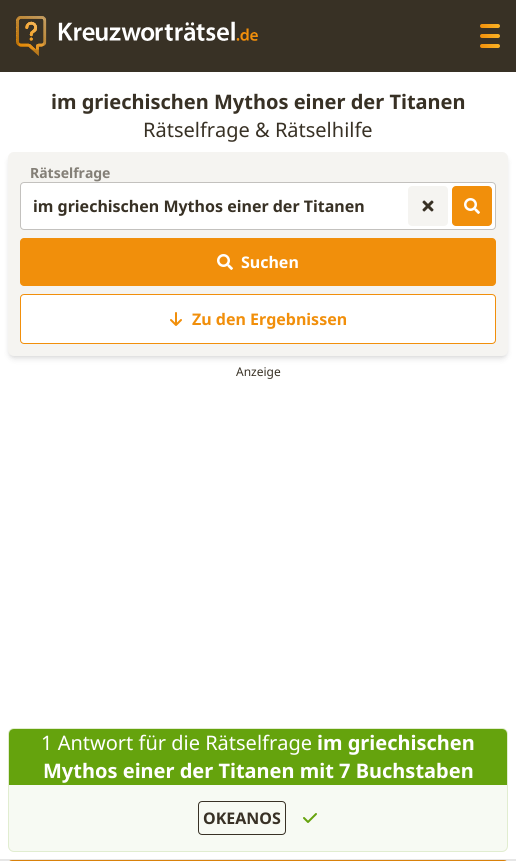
import math
import cairo

surface = cairo.ImageSurface(cairo.FORMAT_RGB24, 516, 861)
ctx = cairo.Context(surface)
options = cairo.FontOptions()
options.set_hint_metrics(cairo.HINT_METRICS_OFF)
options.set_hint_style(cairo.HINT_STYLE_NONE)
ctx.set_font_options(options)
ctx.set_miter_limit(4)


def set_color(code):
    ctx.set_source_rgb(*(v / 255 for v in bytes.fromhex(code[-6:])))


def draw_text(x, y, s, family, size, color, bold=False, italic=False):
    ctx.select_font_face(family, cairo.FONT_SLANT_ITALIC if italic else cairo.FONT_SLANT_NORMAL, cairo.FONT_WEIGHT_BOLD if bold else cairo.FONT_WEIGHT_NORMAL)
    ctx.set_font_size(size)
    set_color(color)
    ctx.move_to(x, y)
    ctx.show_text(s)


def fill_rect(x, y, w, h, color):
    set_color(color)
    ctx.rectangle(x, y, w, h)
    ctx.fill()


def rounded_rect(x, y, w, h, r):
    ctx.new_sub_path()
    for i, (u, v) in enumerate([(x + w - r, y + h - r), (x + r, y + h - r), (x + r, y + r), (x + w - r, y + r)]):
        ctx.arc(u, v, r, i * math.pi / 2, (i + 1) * math.pi / 2)
    ctx.close_path()


def draw_shadow(x, y, w, h, r, blur, alpha):
    ctx.push_group_with_content(cairo.CONTENT_ALPHA)
    ctx.set_operator(cairo.OPERATOR_SOURCE)
    for i in range(15, -16, -2):
        e = blur * i / 6
        if min(w, h) + 2 * e > 0:
            ctx.set_source_rgba(0, 0, 0, alpha * math.erfc((i - 1) / 8.5) / 2)
            rounded_rect(x - e, y - e, w + 2 * e, h + 2 * e, max(0, min(r + e + blur * .6, min(w, h) / 2 + e)))
            ctx.fill()
    ctx.mask(ctx.pop_group())


def draw_image(path, x, y, w, h):
    ctx.save()
    ctx.set_source_surface(cairo.ImageSurface.create_from_png(path), x, y)
    ctx.rectangle(x, y, w, h)
    ctx.fill()
    ctx.restore()


set_color("#ffffff")
ctx.paint()
fill_rect(0, 859, 516, 2, "#e6e6e6")
fill_rect(0, 0, 516, 72, "#383125")
draw_image("assets/img1.png", 16, 16, 242, 40)
gradient = cairo.LinearGradient(480, 26, 500, 26)
gradient.add_color_stop_rgba(0, 0.945, 0.561, 0.043, 1)
gradient.add_color_stop_rgba(1, 0.98, 0.702, 0.145, 1)
ctx.set_source(gradient)
rounded_rect(480, 24, 20, 4, 2)
ctx.fill()
gradient = cairo.LinearGradient(480, 36, 500, 36)
gradient.add_color_stop_rgba(0, 0.945, 0.561, 0.043, 1)
gradient.add_color_stop_rgba(1, 0.98, 0.702, 0.145, 1)
ctx.set_source(gradient)
rounded_rect(480, 34, 20, 4, 2)
ctx.fill()
gradient = cairo.LinearGradient(480, 46, 500, 46)
gradient.add_color_stop_rgba(0, 0.945, 0.561, 0.043, 1)
gradient.add_color_stop_rgba(1, 0.98, 0.702, 0.145, 1)
ctx.set_source(gradient)
rounded_rect(480, 44, 20, 4, 2)
ctx.fill()
draw_text(51, 109, "im griechischen Mythos einer der Titanen", "Noto Sans", 20, "#383125", bold=True)
draw_text(143, 137, "Rätselfrage & Rätselhilfe", "Noto Sans", 20, "#383125")
set_color("#000000")
draw_shadow(10, 156, 496, 200, 4, 2, 0.1)
draw_shadow(9, 157, 498, 202, 5, 3, 0.1)
set_color("#f5f4f1")
rounded_rect(8, 152, 500, 204, 6)
ctx.fill()
draw_text(30, 178, "Rätselfrage", "Noto Sans", 14, "#847f77", bold=True)
set_color("#ffffff")
rounded_rect(20, 182, 476, 48, 4)
ctx.fill()
rounded_rect(20.5, 182.5, 475, 47, 3.5)
ctx.set_source_rgba(0.22, 0.192, 0.145, 0.3)
ctx.set_line_width(1)
ctx.stroke()
draw_text(33, 212, "im griechischen Mythos einer der Titanen", "Noto Sans", 16, "#383125", bold=True)
set_color("#f5f4f1")
rounded_rect(408, 186, 40, 40, 4)
ctx.fill()
draw_image("assets/img2.png", 422, 200, 12, 12)
set_color("#f18f0b")
rounded_rect(452, 186, 40, 40, 4)
ctx.fill()
draw_image("assets/img3.png", 464, 198, 16, 16)
rounded_rect(20, 238, 476, 48, 4)
ctx.fill()
draw_image("assets/img3.png", 217, 254, 16, 16)
draw_text(241, 268, "Suchen", "Noto Sans", 16, "#ffffff", bold=True)
rounded_rect(20.5, 294.5, 475, 49, 3.5)
ctx.fill_preserve()
set_color("#f18f0b")
ctx.stroke()
draw_image("assets/img4.png", 170, 312, 12, 14)
draw_text(192, 325, "Zu den Ergebnissen", "Noto Sans", 16, "#f18f0b", bold=True)
draw_text(236, 376, "Anzeige", "Noto Sans", 12, "#383125")
set_color("#f7faf3")
rounded_rect(8, 728, 500, 124, 6)
ctx.fill()
rounded_rect(8.5, 728.5, 499, 123, 5.5)
ctx.set_source_rgba(0.396, 0.639, 0.051, 0.15)
ctx.stroke()
set_color("#65a30d")
ctx.new_path()
ctx.move_to(14, 729)
ctx.line_to(502, 729)
ctx.curve_to(505, 729, 507, 731, 507, 734)
ctx.line_to(507, 785)
ctx.line_to(9, 785)
ctx.line_to(9, 734)
ctx.curve_to(9, 731, 11, 729, 14, 729)
ctx.close_path()
ctx.fill()
draw_text(41, 750, "1 Antwort für die Rätselfrage", "Noto Sans", 20, "#ffffff")
draw_text(317, 750, "im griechischen", "Noto Sans", 20, "#ffffff", bold=True)
draw_text(43, 778, "Mythos einer der Titanen mit 7 Buchstaben", "Noto Sans", 20, "#ffffff", bold=True)
rounded_rect(198.5, 801.5, 87, 33, 3.5)
set_color("#383125")
ctx.stroke()
draw_text(203, 824, "OKEANOS", "Noto Sans", 16, "#383125", bold=True)
draw_image("assets/img5.png", 303, 813, 14, 10)
rounded_rect(8.5, 860.5, 499, 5, 3.5)
set_color("#d9810a")
ctx.stroke()
surface.write_to_png("output.png")
